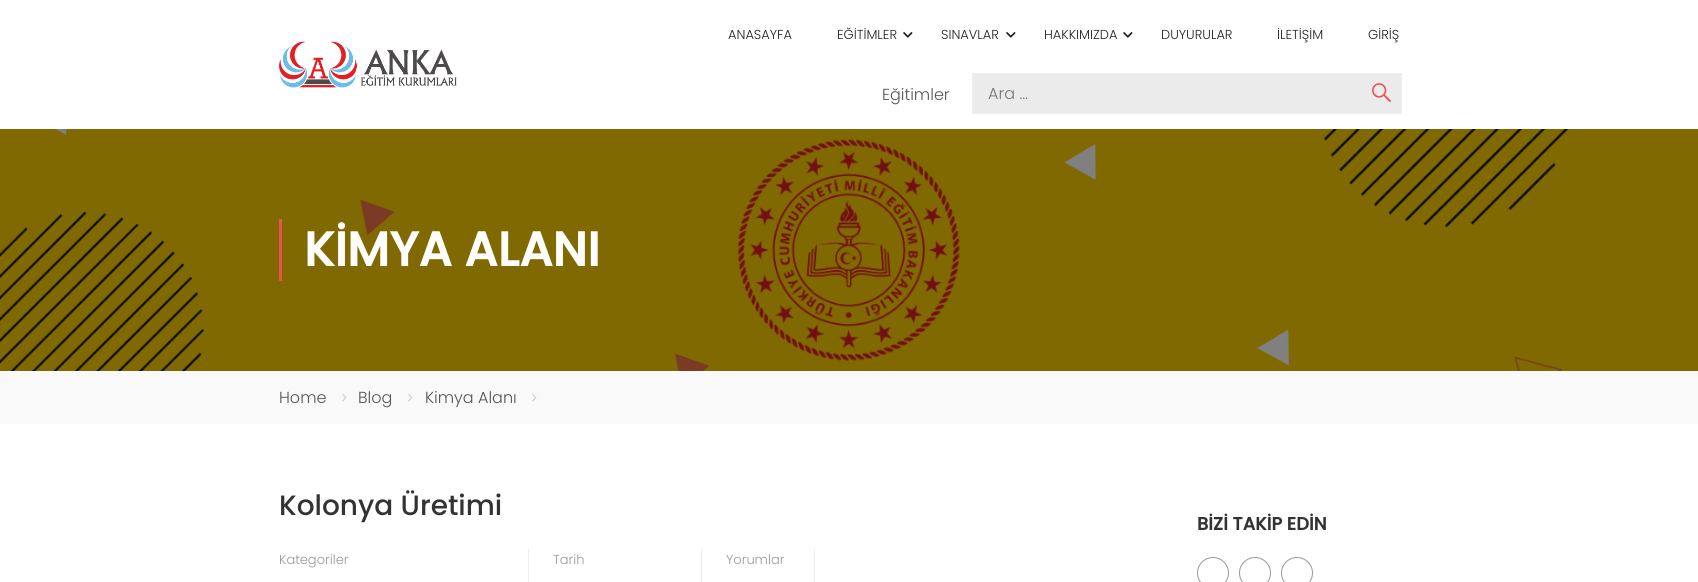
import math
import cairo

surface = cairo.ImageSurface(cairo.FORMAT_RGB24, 1698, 582)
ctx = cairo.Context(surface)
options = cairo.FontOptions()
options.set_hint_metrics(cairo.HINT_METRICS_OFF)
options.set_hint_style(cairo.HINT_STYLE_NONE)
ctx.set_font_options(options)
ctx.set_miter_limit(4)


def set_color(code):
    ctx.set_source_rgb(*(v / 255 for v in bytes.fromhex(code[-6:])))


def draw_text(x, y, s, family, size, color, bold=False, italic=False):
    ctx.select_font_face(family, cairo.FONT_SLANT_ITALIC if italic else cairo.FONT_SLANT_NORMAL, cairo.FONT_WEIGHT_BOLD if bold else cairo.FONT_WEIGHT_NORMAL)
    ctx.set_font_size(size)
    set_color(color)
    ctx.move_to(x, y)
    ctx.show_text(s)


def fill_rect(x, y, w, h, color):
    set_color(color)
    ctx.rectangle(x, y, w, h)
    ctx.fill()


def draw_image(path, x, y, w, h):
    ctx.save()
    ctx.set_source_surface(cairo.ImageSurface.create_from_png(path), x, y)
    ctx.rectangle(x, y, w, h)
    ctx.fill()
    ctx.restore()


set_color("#ffffff")
ctx.paint()
draw_image("assets/img1.png", 279, 41, 178, 47)
draw_text(728, 39, "ANASAYFA", "Poppins Light", 13, "#202020")
draw_text(837, 39, "EĞİTİMLER", "Poppins Light", 13, "#202020")
draw_image("assets/img2.png", 903, 32, 10, 6)
draw_text(941, 39, "SINAVLAR", "Poppins Light", 13, "#202020")
draw_image("assets/img2.png", 1006, 32, 10, 6)
draw_text(1044, 39, "HAKKIMIZDA", "Poppins Light", 13, "#202020")
draw_image("assets/img2.png", 1123, 32, 10, 6)
draw_text(1161, 39, "DUYURULAR", "Poppins Light", 13, "#202020")
draw_text(1277, 39, "İLETİŞİM", "Poppins Light", 13, "#202020")
draw_text(1368, 39, "GİRİŞ", "Poppins Light", 13, "#202020")
draw_text(882, 100, "Eğitimler", "Poppins Light", 16, "#555555")
set_color("#ebebeb")
ctx.rectangle(972.5, 73.5, 429, 40)
ctx.fill_preserve()
set_color("#eeeeee")
ctx.set_line_width(1)
ctx.stroke()
draw_text(988, 99, "Ara …", "Poppins Light", 16, "#757575")
draw_image("assets/img3.png", 1372, 83, 20, 20)
draw_image("assets/img4.png", 0, 129, 1698, 242)
fill_rect(279, 219, 3, 62, "#ec5252")
draw_text(304, 266, "KİMYA ALANI", "Poppins", 48, "#ffffff", bold=True)
fill_rect(0, 371, 1698, 53, "#f9f9f9")
draw_text(279, 403, "Home", "Poppins Light", 16, "#555555")
draw_image("assets/img5.png", 342, 393, 5, 9)
draw_text(358, 403, "Blog", "Poppins Light", 16, "#555555")
draw_image("assets/img5.png", 408, 393, 5, 9)
draw_text(425, 403, "Kimya Alanı", "Poppins Light", 16, "#555555")
draw_image("assets/img5.png", 532, 393, 5, 9)
draw_text(279, 515, "Kolonya Üretimi", "Poppins Medium", 28, "#333333")
fill_rect(528, 549, 1, 33, "#eeeeee")
draw_text(279, 564, "Kategoriler", "Poppins Light", 13, "#999999")
fill_rect(701, 549, 1, 33, "#eeeeee")
draw_text(553, 564, "Tarih", "Poppins Light", 13, "#999999")
fill_rect(814, 549, 1, 33, "#eeeeee")
draw_text(726, 564, "Yorumlar", "Poppins Light", 13, "#999999")
draw_text(1197, 530, "BİZİ TAKİP EDİN", "Poppins", 18, "#333333", bold=True)
ctx.new_path()
ctx.arc(1213, 573, 15.5, 0, 2 * math.pi)
set_color("#999999")
ctx.stroke()
ctx.arc(1255, 573, 15.5, 0, 2 * math.pi)
ctx.stroke()
ctx.arc(1297, 573, 15.5, 0, 2 * math.pi)
ctx.stroke()
surface.write_to_png("output.png")
